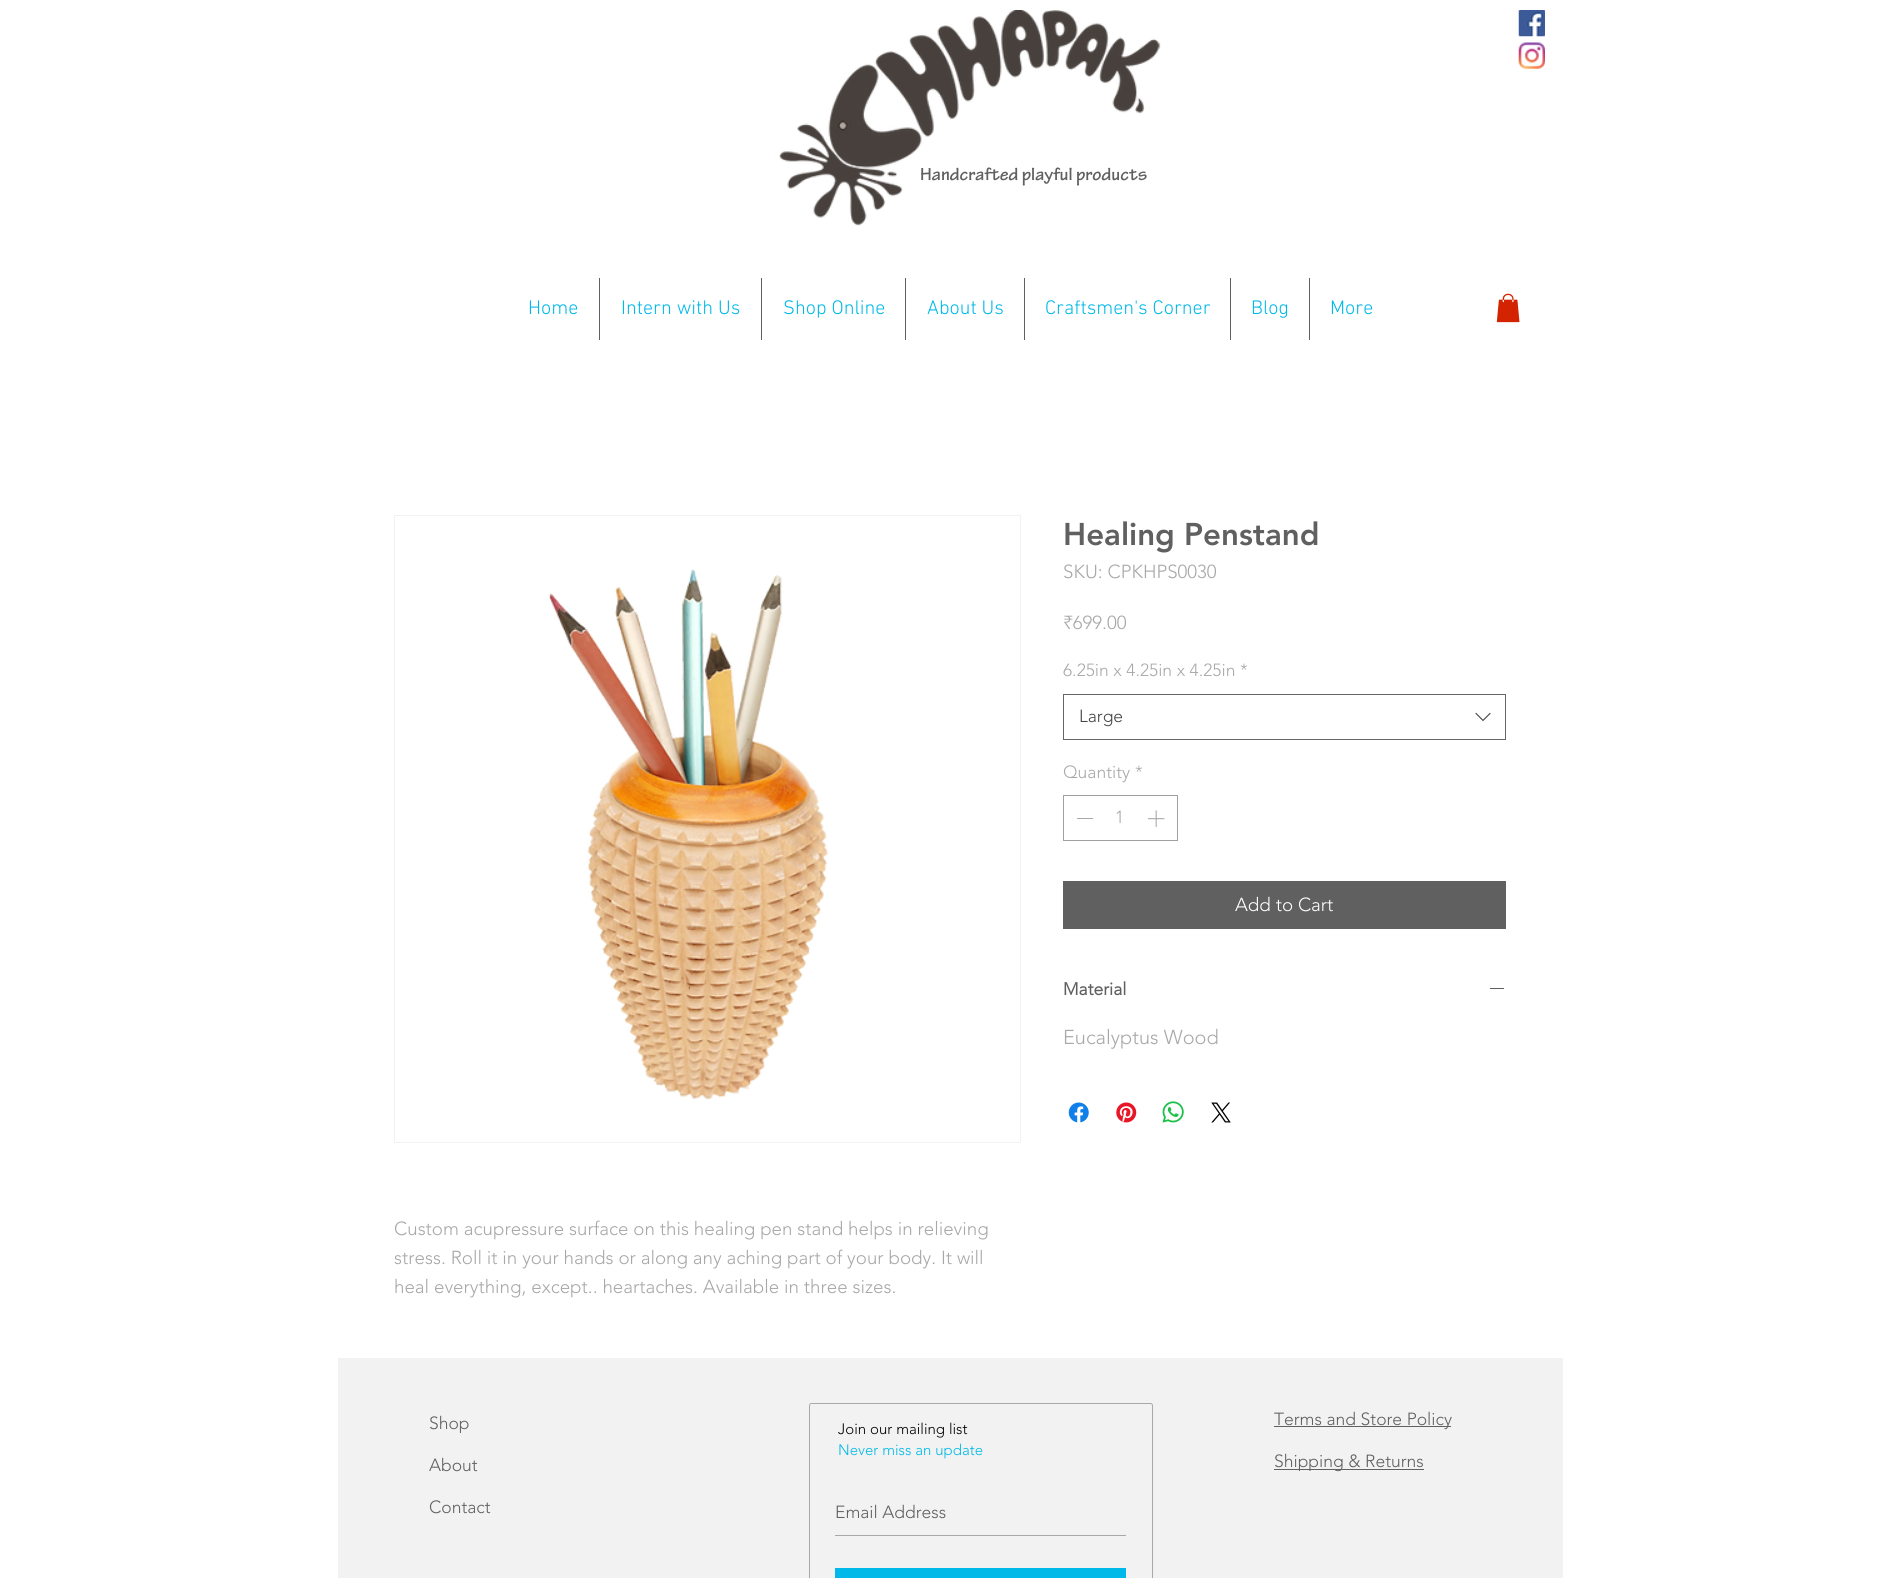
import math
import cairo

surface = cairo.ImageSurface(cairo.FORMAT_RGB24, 1899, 1578)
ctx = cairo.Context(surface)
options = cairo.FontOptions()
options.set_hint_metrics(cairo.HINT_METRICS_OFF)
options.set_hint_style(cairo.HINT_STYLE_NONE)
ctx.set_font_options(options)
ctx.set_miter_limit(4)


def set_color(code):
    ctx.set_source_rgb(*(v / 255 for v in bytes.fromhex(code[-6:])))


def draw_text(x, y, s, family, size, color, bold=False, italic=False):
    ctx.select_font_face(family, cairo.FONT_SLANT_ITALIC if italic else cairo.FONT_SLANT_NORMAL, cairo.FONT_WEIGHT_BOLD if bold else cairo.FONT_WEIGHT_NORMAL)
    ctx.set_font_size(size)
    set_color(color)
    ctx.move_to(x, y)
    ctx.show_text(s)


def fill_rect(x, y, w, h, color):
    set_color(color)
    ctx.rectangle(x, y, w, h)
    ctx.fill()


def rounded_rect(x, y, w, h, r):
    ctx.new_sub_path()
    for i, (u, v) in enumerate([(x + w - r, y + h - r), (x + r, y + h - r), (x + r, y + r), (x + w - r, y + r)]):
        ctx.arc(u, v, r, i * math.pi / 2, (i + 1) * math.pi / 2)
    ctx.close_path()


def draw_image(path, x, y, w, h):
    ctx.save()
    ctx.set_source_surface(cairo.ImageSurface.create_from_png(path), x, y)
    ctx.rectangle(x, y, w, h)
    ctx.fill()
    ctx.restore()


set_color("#ffffff")
ctx.paint()
draw_image("assets/img1.png", 779, 10, 382, 216)
draw_image("assets/img2.png", 1518, 10, 27, 27)
draw_image("assets/img3.png", 1518, 42, 27, 27)
draw_text(920, 180, "Handcrafted playful products", "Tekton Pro", 18.75, "#606060", bold=True)
draw_text(528, 314, "Home", "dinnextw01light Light", 20, "#00b9e8")
fill_rect(599, 278, 1, 62, "#606060")
draw_text(621, 314, "Intern with Us", "dinnextw01light Light", 20, "#00b9e8")
fill_rect(761, 278, 1, 62, "#606060")
draw_text(783, 314, "Shop Online", "dinnextw01light Light", 20, "#00b9e8")
fill_rect(905, 278, 1, 62, "#606060")
draw_text(927, 314, "About Us", "dinnextw01light Light", 20, "#00b9e8")
fill_rect(1024, 278, 1, 62, "#606060")
draw_text(1045, 314, "Craftsmen's Corner", "dinnextw01light Light", 20, "#00b9e8")
fill_rect(1230, 278, 1, 62, "#606060")
draw_text(1251, 314, "Blog", "dinnextw01light Light", 20, "#00b9e8")
fill_rect(1309, 278, 1, 62, "#606060")
draw_text(1330, 314, "More", "dinnextw01light Light", 20, "#00b9e8")
draw_image("assets/img4.png", 1496, 293, 24, 30)
draw_text(1063, 545, "Healing Penstand", "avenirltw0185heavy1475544 Black", 31.25, "#606060")
draw_text(1063, 578, "SKU: CPKHPS0030", "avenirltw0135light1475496 Light", 18.75, "#a8a8a8")
draw_text(1063, 629, "₹699.00", "avenirltw0135light1475496 Light", 18.75, "#a8a8a8")
draw_text(1063, 676, "6.25in x 4.25in x 4.25in", "avenirltw0135light1475496 Light", 17.5, "#a8a8a8")
draw_text(1240, 676, "*", "avenirltw0135light1475496 Light", 17.5, "#a8a8a8")
ctx.rectangle(1063.5, 694.5, 442, 45)
set_color("#666666")
ctx.set_line_width(1)
ctx.stroke()
draw_text(1079, 722, "Large", "avenirltw0135light1475496 Light", 17.5, "#444444")
draw_image("assets/img5.png", 1475, 712, 16, 10)
draw_text(1063, 778, "Quantity", "avenirltw0135light1475496 Light", 17.5, "#a8a8a8")
draw_text(1135, 778, "*", "avenirltw0135light1475496 Light", 17.5, "#a8a8a8")
ctx.rectangle(1063.5, 795.5, 114, 45)
set_color("#a0a0a0")
ctx.stroke()
fill_rect(1077, 818, 16, 1, "#a8a8a8")
draw_text(1115, 823, "1", "avenirltw0135light1475496 Light", 17.5, "#a8a8a8")
draw_image("assets/img6.png", 1148, 810, 17, 17)
fill_rect(1063, 881, 443, 48, "#606060")
draw_text(1235, 911, "Add to Cart", "avenirltw0135light1475496 Light", 18.75, "#ffffff")
draw_text(1063, 995, "Material", "avenirltw0135light1475496", 17.5, "#606060", bold=True)
fill_rect(1490, 988, 14, 1, "#606060")
draw_text(1063, 1044, "Eucalyptus Wood", "avenirltw0135light1475496 Light", 20, "#a8a8a8")
draw_image("assets/img7.png", 1068, 1102, 21, 21)
draw_image("assets/img8.png", 1116, 1102, 21, 21)
draw_image("assets/img9.png", 1162, 1101, 22, 22)
draw_image("assets/img10.png", 1211, 1102, 20, 21)
ctx.rectangle(394.5, 515.5, 626, 627)
set_color("#f2f2f2")
ctx.stroke()
draw_image("assets/img11.png", 549, 569, 279, 531)
draw_text(394, 1235, "Custom acupressure surface on this healing pen stand helps in relieving", "avenirltw0135light1475496 Light", 18.75, "#a8a8a8")
draw_text(394, 1264, "stress. Roll it in your hands or along any aching part of your body. It will", "avenirltw0135light1475496 Light", 18.75, "#a8a8a8")
draw_text(394, 1293, "heal everything, except.. heartaches. Available in three sizes.", "avenirltw0135light1475496 Light", 18.75, "#a8a8a8")
fill_rect(338, 1358, 1225, 220, "#f2f2f2")
draw_text(429, 1429, "Shop", "avenirltw0135light1475496 Light", 17.5, "#606060")
draw_text(429, 1471, "About", "avenirltw0135light1475496 Light", 17.5, "#606060")
draw_text(429, 1513, "Contact", "avenirltw0135light1475496 Light", 17.5, "#606060")
rounded_rect(809.5, 1403.5, 343, 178, 2)
set_color("#a8a8a8")
ctx.stroke()
set_color("#f2f2f2")
ctx.new_path()
ctx.move_to(812.5, 1404)
ctx.line_to(1148.5, 1404)
ctx.curve_to(1150, 1404, 1151, 1405, 1151, 1406.5)
ctx.line_to(1151, 1474)
ctx.line_to(810, 1474)
ctx.line_to(810, 1406.5)
ctx.curve_to(810, 1405, 811, 1404, 812.5, 1404)
ctx.close_path()
ctx.fill()
draw_text(838, 1434, "Join our mailing list", "avenirltw0135light1475496 Light", 15, "#000000")
draw_text(838, 1455, "Never miss an update", "avenirltw0135light1475496 Light", 15, "#00b9e8")
fill_rect(835, 1535, 291, 1, "#a8a8a8")
draw_text(835, 1518, "Email Address", "avenirltw0135light1475496 Light", 17.5, "#606060")
fill_rect(835, 1568, 291, 10, "#00b9e8")
fill_rect(1274, 1426, 177, 1, "#606060")
draw_text(1274, 1425, "Terms and Store Policy", "avenirltw0135light1475496 Light", 17.5, "#606060")
fill_rect(1274, 1469, 150, 1, "#606060")
draw_text(1274, 1467, "Shipping & Returns", "avenirltw0135light1475496 Light", 17.5, "#606060")
surface.write_to_png("output.png")
